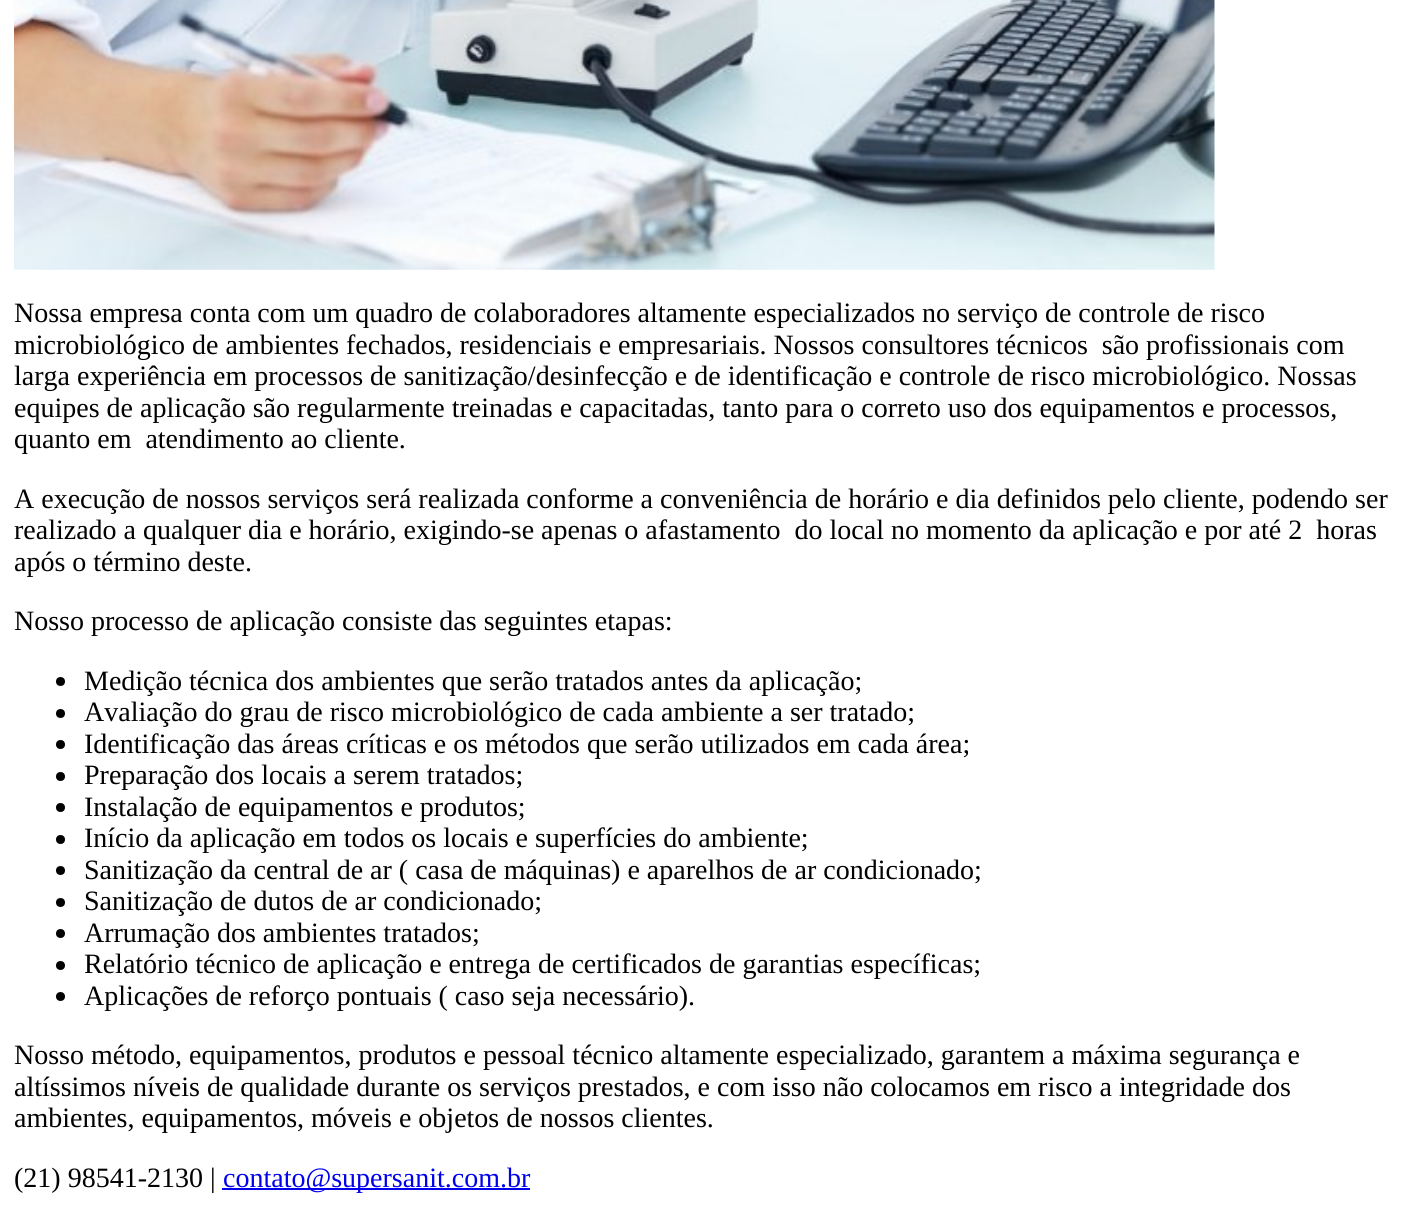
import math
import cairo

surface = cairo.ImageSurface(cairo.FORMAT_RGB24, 1401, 1220)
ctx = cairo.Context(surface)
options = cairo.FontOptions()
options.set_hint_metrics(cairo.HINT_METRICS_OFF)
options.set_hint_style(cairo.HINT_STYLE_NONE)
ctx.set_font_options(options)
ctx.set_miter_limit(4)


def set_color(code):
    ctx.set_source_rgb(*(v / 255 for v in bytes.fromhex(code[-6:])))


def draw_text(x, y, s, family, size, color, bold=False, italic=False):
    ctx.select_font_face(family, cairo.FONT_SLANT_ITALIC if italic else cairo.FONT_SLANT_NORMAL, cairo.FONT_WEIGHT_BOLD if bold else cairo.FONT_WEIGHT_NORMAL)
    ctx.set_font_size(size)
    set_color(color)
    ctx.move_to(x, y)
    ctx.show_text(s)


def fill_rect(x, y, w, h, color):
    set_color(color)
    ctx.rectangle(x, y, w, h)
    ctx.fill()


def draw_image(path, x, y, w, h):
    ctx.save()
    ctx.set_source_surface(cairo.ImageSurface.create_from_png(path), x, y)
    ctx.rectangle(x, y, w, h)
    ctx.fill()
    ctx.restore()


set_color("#ffffff")
ctx.paint()
draw_image("assets/img1.png", 14, 0, 1201, 270)
draw_text(14, 322, "Nossa empresa conta com um quadro de colaboradores altamente especializados no serviço de controle de risco", "Liberation Serif", 28, "#000000")
draw_text(14, 354, "microbiológico de ambientes fechados, residenciais e empresariais. Nossos consultores técnicos  são profissionais com", "Liberation Serif", 28, "#000000")
draw_text(14, 385, "larga experiência em processos de sanitização/desinfecção e de identificação e controle de risco microbiológico. Nossas", "Liberation Serif", 28, "#000000")
draw_text(14, 417, "equipes de aplicação são regularmente treinadas e capacitadas, tanto para o correto uso dos equipamentos e processos,", "Liberation Serif", 28, "#000000")
draw_text(14, 448, "quanto em  atendimento ao cliente.", "Liberation Serif", 28, "#000000")
draw_text(14, 508, "A execução de nossos serviços será realizada conforme a conveniência de horário e dia definidos pelo cliente, podendo ser", "Liberation Serif", 28, "#000000")
draw_text(14, 539, "realizado a qualquer dia e horário, exigindo-se apenas o afastamento  do local no momento da aplicação e por até 2  horas", "Liberation Serif", 28, "#000000")
draw_text(14, 571, "após o término deste.", "Liberation Serif", 28, "#000000")
draw_text(14, 630, "Nosso processo de aplicação consiste das seguintes etapas:", "Liberation Serif", 28, "#000000")
ctx.new_path()
ctx.arc(60.5, 681.5, 4.5, 0, 2 * math.pi)
ctx.fill()
draw_text(84, 690, "Medição técnica dos ambientes que serão tratados antes da aplicação;", "Liberation Serif", 28, "#000000")
ctx.new_path()
ctx.arc(60.5, 713.5, 4.5, 0, 2 * math.pi)
ctx.fill()
draw_text(84, 721, "Avaliação do grau de risco microbiológico de cada ambiente a ser tratado;", "Liberation Serif", 28, "#000000")
ctx.new_path()
ctx.arc(60.5, 744.5, 4.5, 0, 2 * math.pi)
ctx.fill()
draw_text(84, 753, "Identificação das áreas críticas e os métodos que serão utilizados em cada área;", "Liberation Serif", 28, "#000000")
ctx.new_path()
ctx.arc(60.5, 776.5, 4.5, 0, 2 * math.pi)
ctx.fill()
draw_text(84, 784, "Preparação dos locais a serem tratados;", "Liberation Serif", 28, "#000000")
ctx.new_path()
ctx.arc(60.5, 807.5, 4.5, 0, 2 * math.pi)
ctx.fill()
draw_text(84, 816, "Instalação de equipamentos e produtos;", "Liberation Serif", 28, "#000000")
ctx.new_path()
ctx.arc(60.5, 839.5, 4.5, 0, 2 * math.pi)
ctx.fill()
draw_text(84, 847, "Início da aplicação em todos os locais e superfícies do ambiente;", "Liberation Serif", 28, "#000000")
ctx.new_path()
ctx.arc(60.5, 870.5, 4.5, 0, 2 * math.pi)
ctx.fill()
draw_text(84, 879, "Sanitização da central de ar ( casa de máquinas) e aparelhos de ar condicionado;", "Liberation Serif", 28, "#000000")
ctx.new_path()
ctx.arc(60.5, 902.5, 4.5, 0, 2 * math.pi)
ctx.fill()
draw_text(84, 910, "Sanitização de dutos de ar condicionado;", "Liberation Serif", 28, "#000000")
ctx.new_path()
ctx.arc(60.5, 933.5, 4.5, 0, 2 * math.pi)
ctx.fill()
draw_text(84, 942, "Arrumação dos ambientes tratados;", "Liberation Serif", 28, "#000000")
ctx.new_path()
ctx.arc(60.5, 965.5, 4.5, 0, 2 * math.pi)
ctx.fill()
draw_text(84, 973, "Relatório técnico de aplicação e entrega de certificados de garantias específicas;", "Liberation Serif", 28, "#000000")
ctx.new_path()
ctx.arc(60.5, 996.5, 4.5, 0, 2 * math.pi)
ctx.fill()
draw_text(84, 1005, "Aplicações de reforço pontuais ( caso seja necessário).", "Liberation Serif", 28, "#000000")
draw_text(14, 1064, "Nosso método, equipamentos, produtos e pessoal técnico altamente especializado, garantem a máxima segurança e", "Liberation Serif", 28, "#000000")
draw_text(14, 1096, "altíssimos níveis de qualidade durante os serviços prestados, e com isso não colocamos em risco a integridade dos", "Liberation Serif", 28, "#000000")
draw_text(14, 1127, "ambientes, equipamentos, móveis e objetos de nossos clientes.", "Liberation Serif", 28, "#000000")
draw_text(14, 1187, "(21) 98541-2130 |", "Liberation Serif", 28, "#000000")
fill_rect(222, 1188, 308, 2, "#0000ee")
draw_text(223, 1187, "contato@supersanit.com.br", "Liberation Serif", 28, "#0000ee")
surface.write_to_png("output.png")
